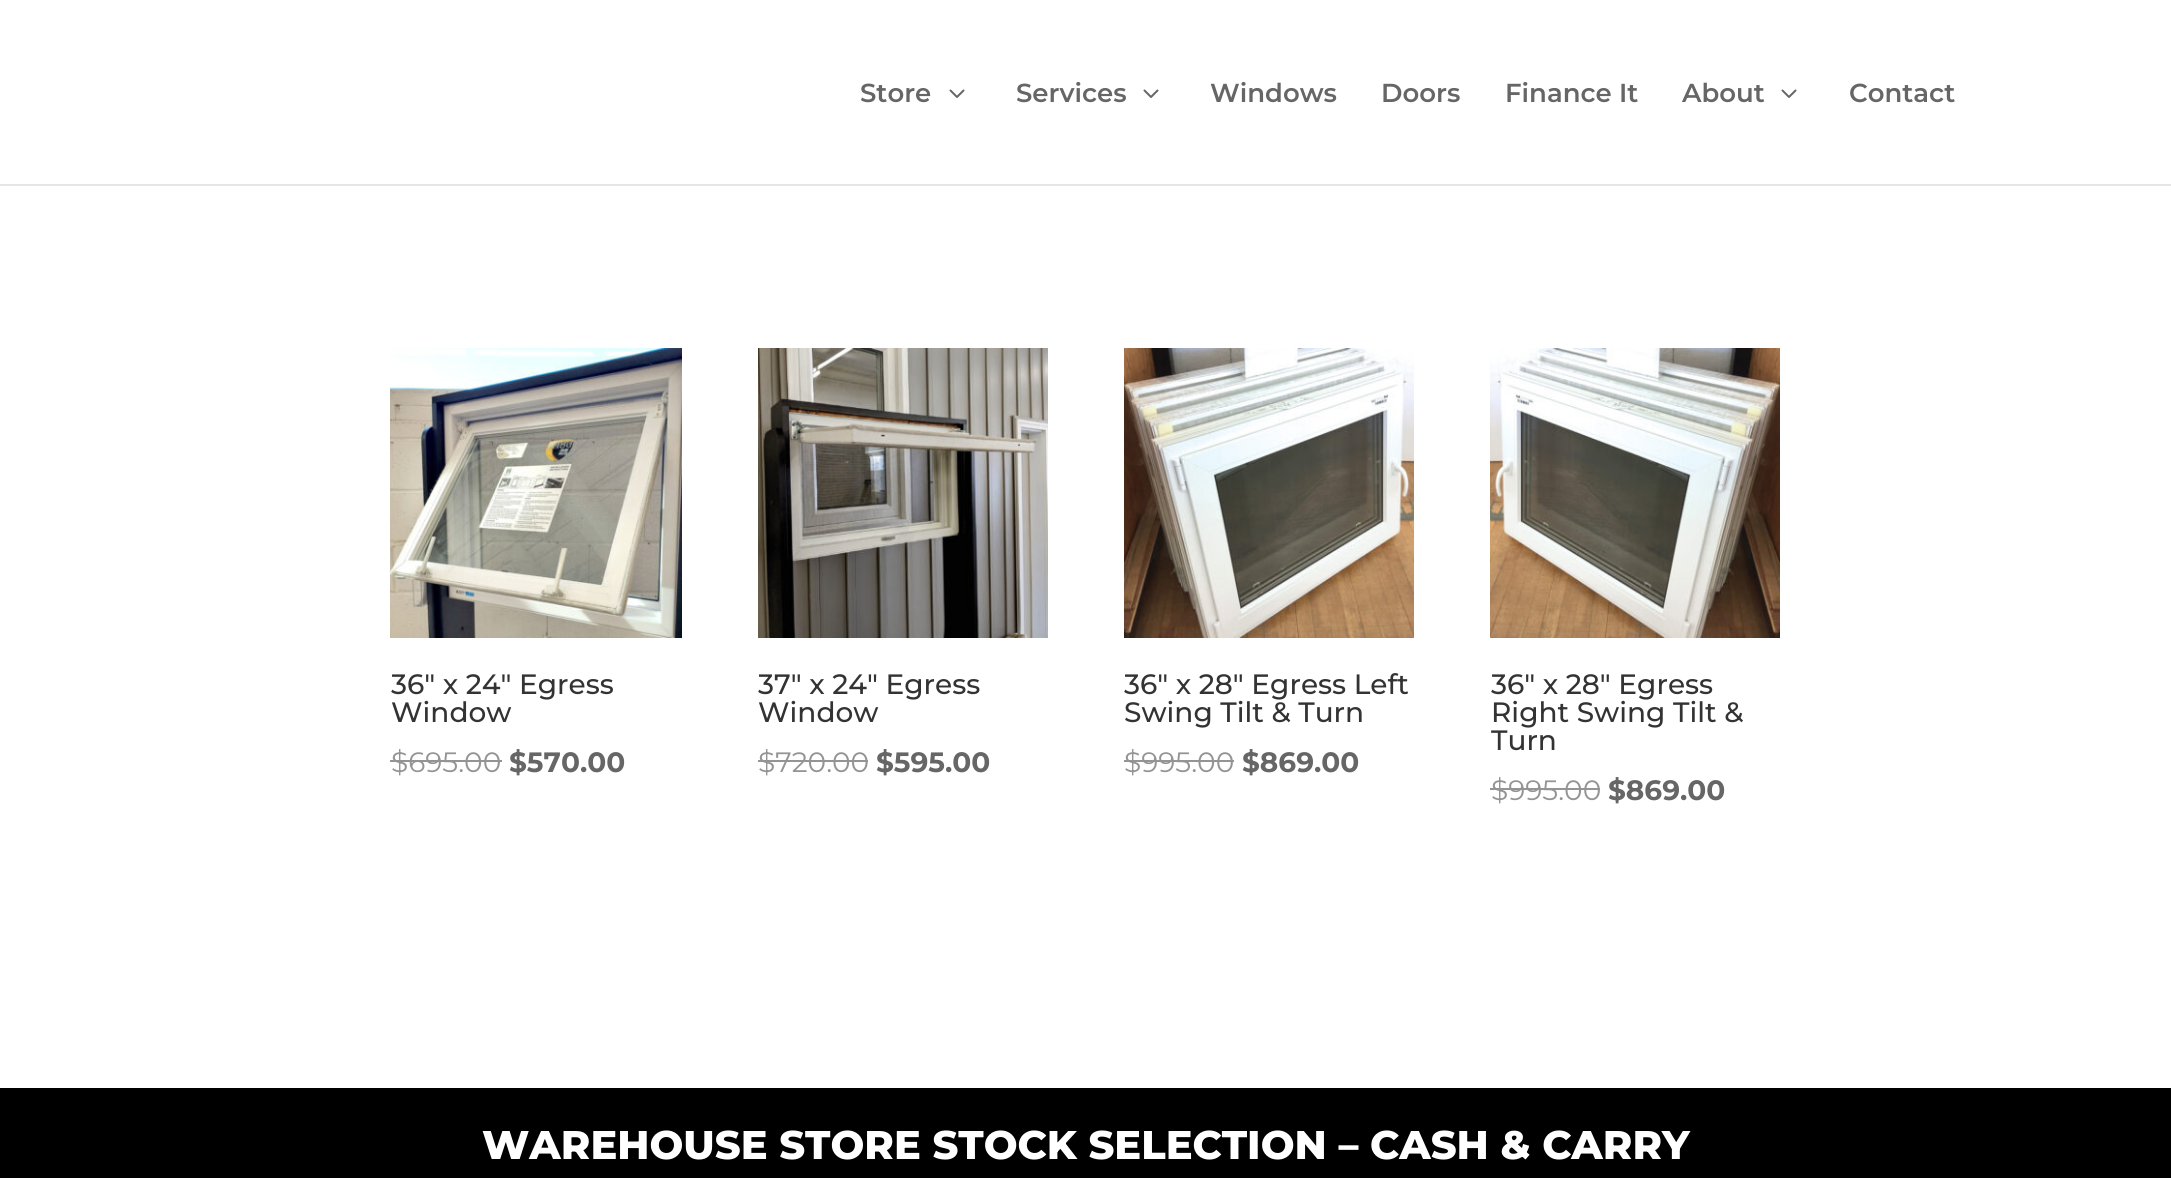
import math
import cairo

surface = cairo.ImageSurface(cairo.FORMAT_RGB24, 2171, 1178)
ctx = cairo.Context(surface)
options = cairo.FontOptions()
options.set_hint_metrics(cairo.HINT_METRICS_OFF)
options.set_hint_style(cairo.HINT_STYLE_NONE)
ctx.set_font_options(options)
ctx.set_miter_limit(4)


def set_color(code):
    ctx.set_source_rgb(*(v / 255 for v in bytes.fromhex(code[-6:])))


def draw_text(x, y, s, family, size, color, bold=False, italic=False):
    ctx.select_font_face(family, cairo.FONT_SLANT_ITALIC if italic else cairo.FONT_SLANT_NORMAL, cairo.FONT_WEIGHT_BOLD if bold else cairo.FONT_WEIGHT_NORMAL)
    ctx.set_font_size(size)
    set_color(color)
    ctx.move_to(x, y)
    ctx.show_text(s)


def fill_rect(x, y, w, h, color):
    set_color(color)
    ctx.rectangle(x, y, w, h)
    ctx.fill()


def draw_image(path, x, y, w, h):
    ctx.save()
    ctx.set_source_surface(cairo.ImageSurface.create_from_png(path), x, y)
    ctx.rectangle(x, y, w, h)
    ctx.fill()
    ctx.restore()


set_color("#ffffff")
ctx.paint()
fill_rect(0, 184, 2171, 2, "#e6e6e6")
draw_text(860, 102, "Store", "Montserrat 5 Thin", 26, "#666666")
draw_image("assets/img1.png", 949, 89, 16, 9)
draw_text(1016, 102, "Services", "Montserrat 5 Thin", 26, "#666666")
draw_image("assets/img1.png", 1143, 89, 16, 9)
draw_text(1210, 102, "Windows", "Montserrat 5 Thin", 26, "#666666")
draw_text(1381, 102, "Doors", "Montserrat 5 Thin", 26, "#666666")
draw_text(1505, 102, "Finance It", "Montserrat 5 Thin", 26, "#666666")
draw_text(1682, 102, "About", "Montserrat 5 Thin", 26, "#666666")
draw_image("assets/img1.png", 1781, 89, 16, 9)
draw_text(1849, 102, "Contact", "Montserrat 5 Thin", 26, "#666666")
draw_image("assets/img2.png", 390, 348, 292, 290)
draw_text(391, 694, "36″ x 24″ Egress", "Montserrat Thin", 28, "#333333")
draw_text(391, 722, "Window", "Montserrat Thin", 28, "#333333")
draw_text(391, 772, "$695.00", "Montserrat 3 Thin", 28, "#949494")
fill_rect(390, 760, 112, 2, "#949494")
draw_text(509, 772, "$570.00", "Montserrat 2 Thin", 28, "#666666")
draw_image("assets/img3.png", 758, 348, 290, 290)
draw_text(758, 694, "37″ x 24″ Egress", "Montserrat Thin", 28, "#333333")
draw_text(758, 722, "Window", "Montserrat Thin", 28, "#333333")
draw_text(758, 772, "$720.00", "Montserrat 3 Thin", 28, "#949494")
fill_rect(758, 760, 110, 2, "#949494")
draw_text(876, 772, "$595.00", "Montserrat 2 Thin", 28, "#666666")
draw_image("assets/img4.png", 1124, 348, 290, 290)
draw_text(1124, 694, "36″ x 28″ Egress Left", "Montserrat Thin", 28, "#333333")
draw_text(1124, 722, "Swing Tilt & Turn", "Montserrat Thin", 28, "#333333")
draw_text(1124, 772, "$995.00", "Montserrat 3 Thin", 28, "#949494")
fill_rect(1124, 760, 110, 2, "#949494")
draw_text(1242, 772, "$869.00", "Montserrat 2 Thin", 28, "#666666")
draw_image("assets/img5.png", 1490, 348, 290, 290)
draw_text(1491, 694, "36″ x 28″ Egress", "Montserrat Thin", 28, "#333333")
draw_text(1491, 722, "Right Swing Tilt &", "Montserrat Thin", 28, "#333333")
draw_text(1491, 750, "Turn", "Montserrat Thin", 28, "#333333")
draw_text(1491, 800, "$995.00", "Montserrat 3 Thin", 28, "#949494")
fill_rect(1490, 788, 110, 2, "#949494")
draw_text(1608, 800, "$869.00", "Montserrat 2 Thin", 28, "#666666")
fill_rect(0, 1088, 2171, 90, "#000000")
draw_text(482, 1159, "WAREHOUSE STORE STOCK SELECTION – CASH & CARRY", "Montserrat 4 Thin", 40, "#ffffff")
surface.write_to_png("output.png")
